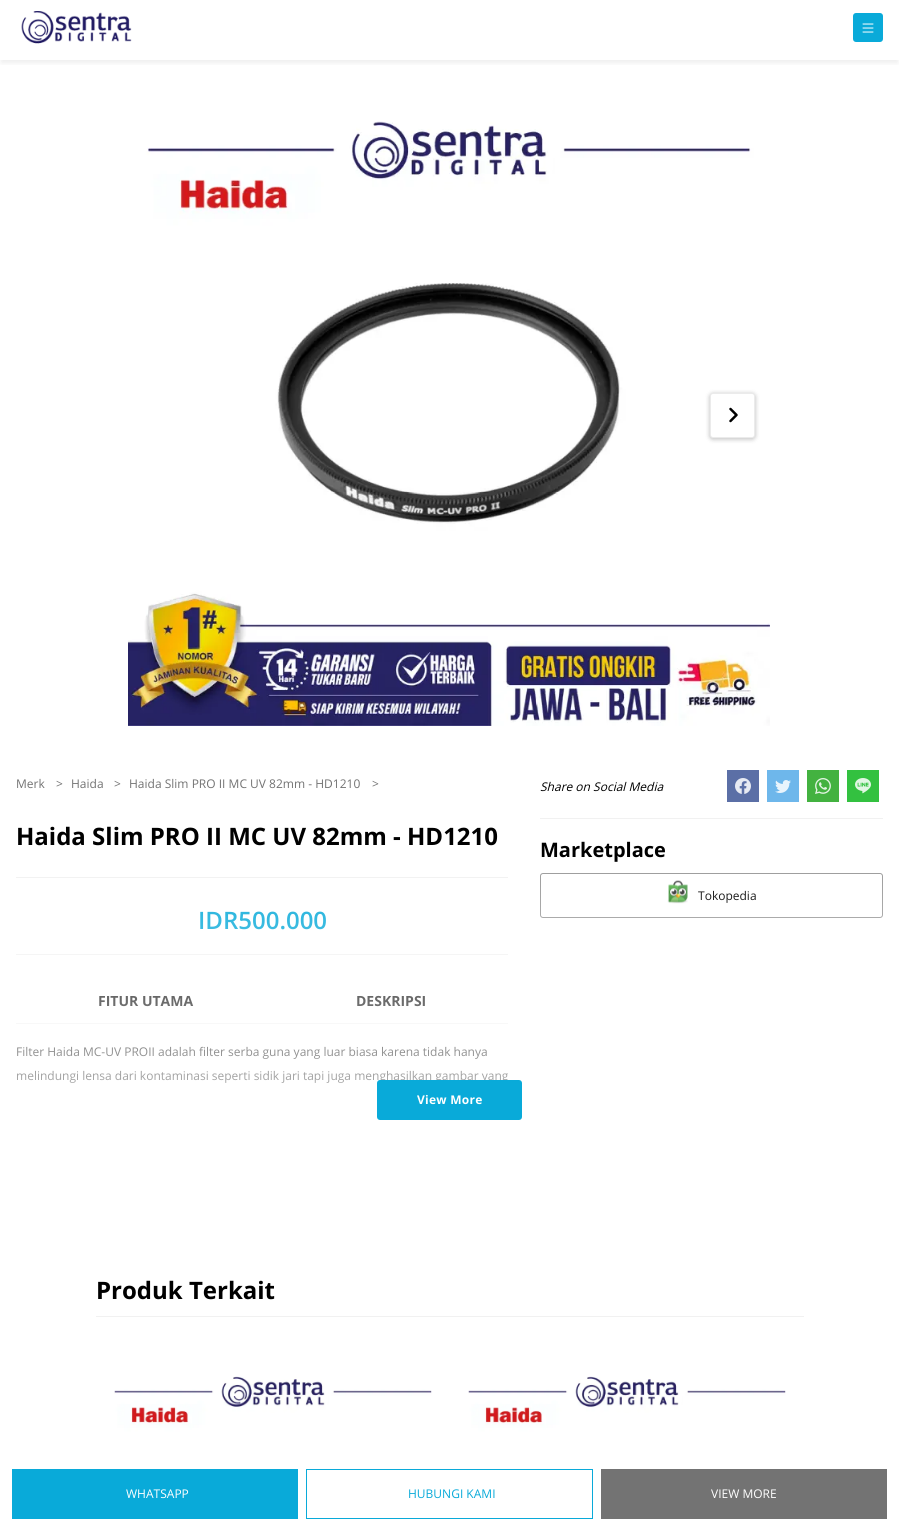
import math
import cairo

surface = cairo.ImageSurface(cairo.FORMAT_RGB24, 899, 1527)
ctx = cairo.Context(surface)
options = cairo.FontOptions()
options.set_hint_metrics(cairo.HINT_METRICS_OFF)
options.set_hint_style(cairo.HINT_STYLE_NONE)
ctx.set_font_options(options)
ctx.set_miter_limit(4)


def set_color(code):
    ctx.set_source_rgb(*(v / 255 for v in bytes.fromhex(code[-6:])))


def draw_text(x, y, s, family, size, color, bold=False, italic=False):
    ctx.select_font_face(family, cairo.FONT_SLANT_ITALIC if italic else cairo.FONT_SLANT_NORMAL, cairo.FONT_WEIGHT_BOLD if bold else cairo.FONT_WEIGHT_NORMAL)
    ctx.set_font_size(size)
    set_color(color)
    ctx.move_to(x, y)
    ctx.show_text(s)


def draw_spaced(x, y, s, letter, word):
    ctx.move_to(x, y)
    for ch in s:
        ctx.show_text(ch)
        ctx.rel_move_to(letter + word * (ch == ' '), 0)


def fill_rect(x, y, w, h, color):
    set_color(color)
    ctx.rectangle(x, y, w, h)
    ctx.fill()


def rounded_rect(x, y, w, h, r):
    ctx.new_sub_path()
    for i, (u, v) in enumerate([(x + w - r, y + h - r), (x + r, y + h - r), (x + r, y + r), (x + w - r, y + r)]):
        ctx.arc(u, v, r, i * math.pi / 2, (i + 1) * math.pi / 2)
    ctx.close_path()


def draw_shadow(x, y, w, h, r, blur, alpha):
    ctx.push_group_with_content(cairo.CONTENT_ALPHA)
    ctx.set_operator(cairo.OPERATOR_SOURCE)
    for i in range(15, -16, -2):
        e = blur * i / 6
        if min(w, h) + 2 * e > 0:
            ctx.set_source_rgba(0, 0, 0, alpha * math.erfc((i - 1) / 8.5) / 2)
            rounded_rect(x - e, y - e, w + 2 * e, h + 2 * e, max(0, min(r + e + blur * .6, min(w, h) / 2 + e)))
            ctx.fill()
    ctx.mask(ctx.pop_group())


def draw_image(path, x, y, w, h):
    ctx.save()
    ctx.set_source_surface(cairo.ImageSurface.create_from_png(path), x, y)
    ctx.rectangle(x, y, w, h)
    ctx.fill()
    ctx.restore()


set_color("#ffffff")
ctx.paint()
ctx.save()
ctx.rectangle(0, 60, 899, 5)
ctx.clip()
set_color("#000000")
draw_shadow(1, 5, 897, 58, 0, 3, 0.07)
ctx.restore()
draw_image("assets/img1.png", 21, 11, 111, 33)
set_color("#09aad9")
rounded_rect(853, 13, 30, 29, 3)
ctx.fill()
draw_image("assets/img2.png", 862, 23, 12, 10)
draw_image("assets/img3.png", 128, 121, 642, 605)
set_color("#000000")
draw_shadow(709, 393, 47, 47, 4, 2, 0.2)
set_color("#ffffff")
rounded_rect(710, 393, 45, 45, 3)
ctx.fill()
rounded_rect(710.5, 393.5, 44, 44, 2.5)
ctx.set_source_rgba(0, 0, 0, 0.08)
ctx.set_line_width(1)
ctx.stroke()
ctx.new_path()
ctx.move_to(730.5, 409)
ctx.line_to(736.5, 415)
ctx.line_to(730.5, 421)
set_color("#000000")
ctx.set_line_width(2.5)
ctx.set_line_cap(cairo.LINE_CAP_ROUND)
ctx.set_line_join(cairo.LINE_JOIN_ROUND)
ctx.stroke()
draw_text(16, 788, "Merk", "Open Sans", 12, "#737373")
draw_text(56, 788, ">", "Open Sans", 12, "#737373")
draw_text(71, 788, "Haida", "Open Sans", 12, "#737373")
draw_text(114, 788, ">", "Open Sans", 12, "#737373")
draw_text(129, 788, "Haida Slim PRO II MC UV 82mm - HD1210", "Open Sans", 12, "#737373")
draw_text(372, 788, ">", "Open Sans", 12, "#737373")
draw_text(16, 845, "Haida Slim PRO II MC UV 82mm - HD1210", "Open Sans", 24, "#000000", bold=True)
fill_rect(16, 877, 492, 1, "#f1f1f1")
fill_rect(16, 954, 492, 1, "#f1f1f1")
draw_text(198, 929, "IDR500.000", "Open Sans SemiBold", 24, "#09aad9")
fill_rect(16, 1023, 492, 1, "#f1f1f1")
draw_text(98, 1006, "FITUR UTAMA", "Open Sans", 14, "#000000", bold=True)
draw_text(356, 1006, "DESKRIPSI", "Open Sans", 14, "#000000", bold=True)
draw_text(16, 1056, "Filter Haida MC-UV PROII adalah filter serba guna yang luar biasa karena tidak hanya", "Open Sans", 12, "#000000")
draw_text(16, 1080, "melindungi lensa dari kontaminasi seperti sidik jari tapi juga menghasilkan gambar yang", "Open Sans", 12, "#000000")
fill_rect(540, 818, 343, 1, "#f1f1f1")
draw_text(540, 791, "Share on Social Media", "Open Sans", 12, "#000000", italic=True)
fill_rect(727, 770, 32, 32, "#5b6fa6")
draw_image("assets/img4.png", 735, 778, 16, 16)
fill_rect(767, 770, 32, 32, "#6eb7eb")
draw_image("assets/img5.png", 775, 780, 16, 13)
fill_rect(807, 770, 32, 32, "#43b240")
draw_image("assets/img6.png", 815, 778, 16, 16)
fill_rect(847, 770, 32, 32, "#33c140")
draw_image("assets/img7.png", 855, 778, 16, 16)
draw_text(540, 857, "Marketplace", "Open Sans", 20, "#000000", bold=True)
rounded_rect(540.5, 873.5, 342, 44, 2.5)
set_color("#9a9a9a")
ctx.set_line_width(1)
ctx.set_line_cap(cairo.LINE_CAP_BUTT)
ctx.set_line_join(cairo.LINE_JOIN_MITER)
ctx.stroke()
draw_image("assets/img8.png", 667, 880, 21, 24)
draw_text(698, 900, "Tokopedia", "Open Sans", 12, "#000000")
fill_rect(12, 1469, 286, 50, "#09aad9")
draw_text(126, 1498, "WHATSAPP", "Open Sans", 12, "#ffffff")
ctx.rectangle(306.5, 1469.5, 286, 49)
set_color("#09aad9")
ctx.stroke()
draw_text(408, 1498, "HUBUNGI KAMI", "Open Sans", 12, "#09aad9")
fill_rect(601, 1469, 286, 50, "#737373")
draw_text(711, 1498, "VIEW MORE", "Open Sans", 12, "#ffffff")
gradient = cairo.LinearGradient(450, 1200, 450, 858)
gradient.add_color_stop_rgba(0, 1, 1, 1, 1)
gradient.add_color_stop_rgba(1, 1, 1, 1, 0)
ctx.set_source(gradient)
ctx.rectangle(16, 873, 867, 210)
ctx.fill()
set_color("#09aad9")
rounded_rect(377, 1080, 145, 40, 3)
ctx.fill()
ctx.select_font_face("Open Sans", cairo.FONT_SLANT_NORMAL, cairo.FONT_WEIGHT_BOLD)
set_color("#ffffff")
draw_spaced(417, 1104, "View More", 0.25, 0)
fill_rect(96, 1316, 708, 1, "#f1f1f1")
draw_text(96, 1299, "Produk Terkait", "Open Sans", 24, "#000000", bold=True)
draw_image("assets/img9.png", 114, 1376, 318, 85)
draw_image("assets/img9.png", 468, 1376, 318, 85)
surface.write_to_png("output.png")
